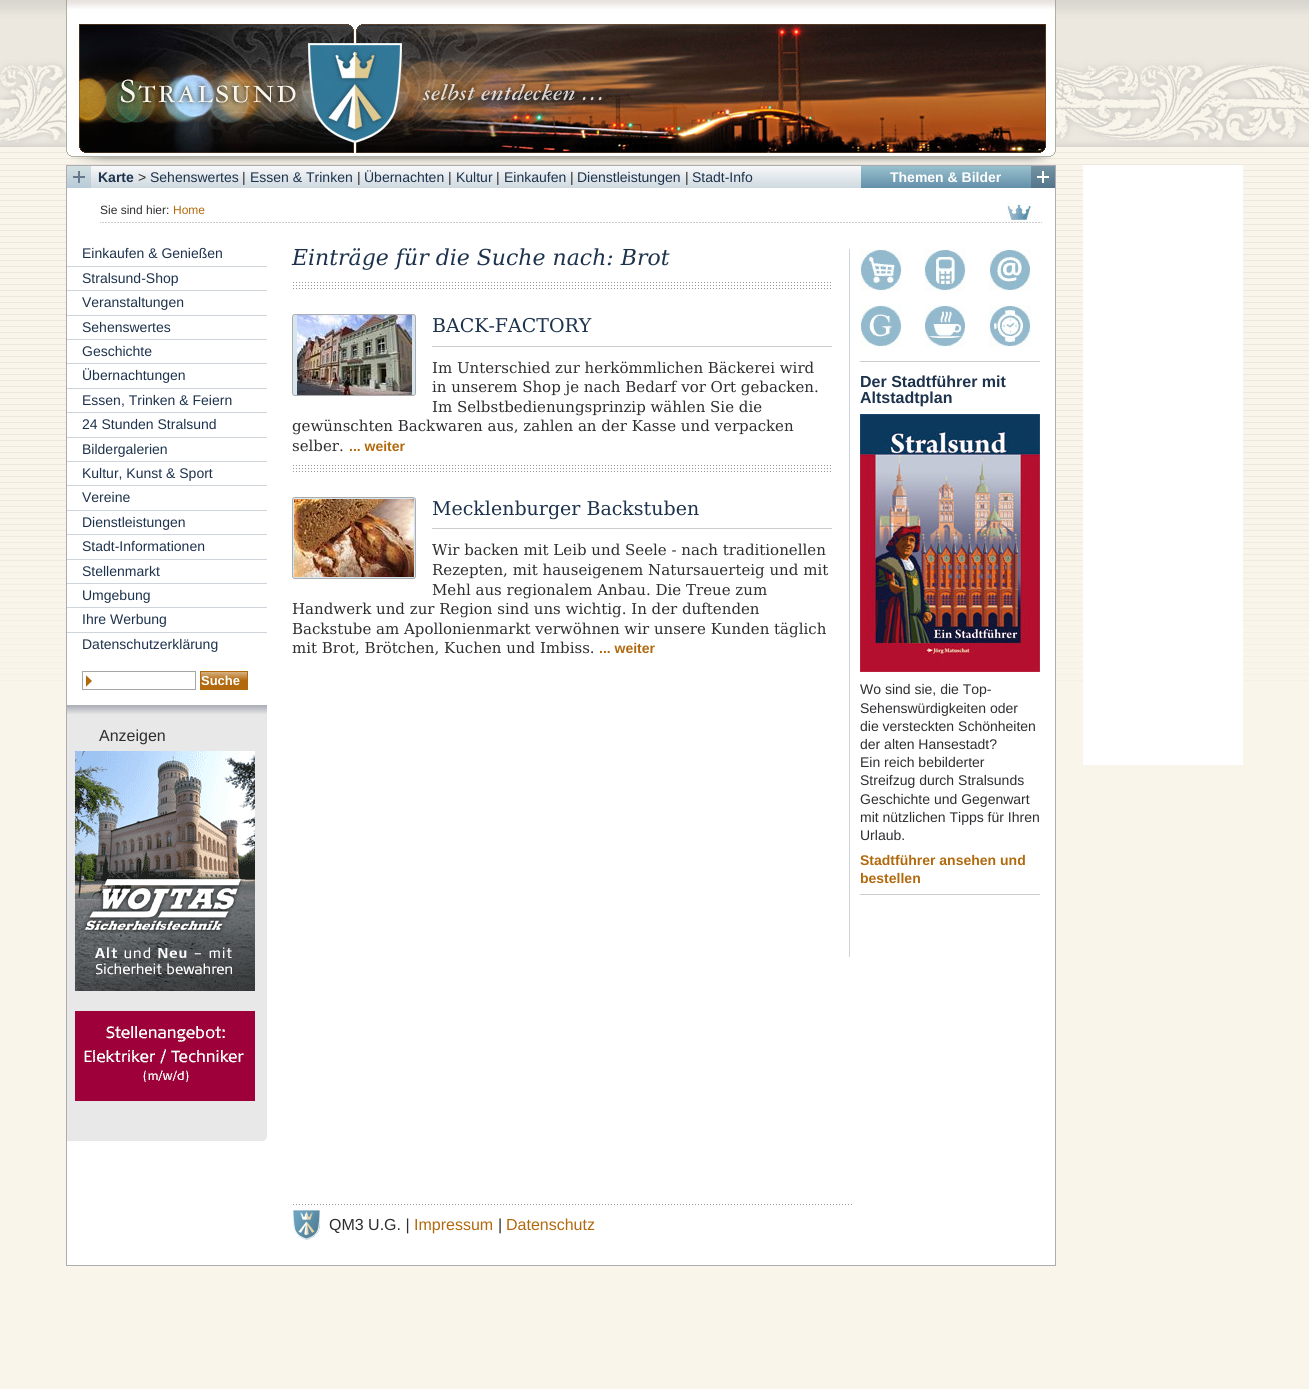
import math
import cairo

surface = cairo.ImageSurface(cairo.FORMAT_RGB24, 1309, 1389)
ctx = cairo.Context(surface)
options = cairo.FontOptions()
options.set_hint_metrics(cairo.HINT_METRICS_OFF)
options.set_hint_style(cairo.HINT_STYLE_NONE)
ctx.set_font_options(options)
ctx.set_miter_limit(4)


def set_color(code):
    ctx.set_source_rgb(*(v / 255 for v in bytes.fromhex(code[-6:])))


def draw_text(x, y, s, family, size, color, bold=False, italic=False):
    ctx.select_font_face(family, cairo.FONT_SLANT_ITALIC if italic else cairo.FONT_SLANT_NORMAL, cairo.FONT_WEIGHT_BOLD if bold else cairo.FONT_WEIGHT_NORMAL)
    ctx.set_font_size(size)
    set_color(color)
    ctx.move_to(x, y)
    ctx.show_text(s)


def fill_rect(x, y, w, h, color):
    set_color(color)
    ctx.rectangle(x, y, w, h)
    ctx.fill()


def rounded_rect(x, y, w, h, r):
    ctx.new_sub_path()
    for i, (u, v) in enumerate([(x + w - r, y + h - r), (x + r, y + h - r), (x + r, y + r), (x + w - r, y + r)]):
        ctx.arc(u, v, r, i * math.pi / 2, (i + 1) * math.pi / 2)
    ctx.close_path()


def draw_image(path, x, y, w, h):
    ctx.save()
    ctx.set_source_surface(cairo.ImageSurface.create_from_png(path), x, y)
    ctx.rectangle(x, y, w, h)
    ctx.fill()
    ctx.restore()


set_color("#f9f5ea")
ctx.paint()
draw_image("assets/img1.png", 0, 0, 1309, 681)
draw_image("assets/img2.png", 66, 0, 990, 165)
gradient = cairo.LinearGradient(561, 166, 561, 188)
gradient.add_color_stop_rgba(0, 0.973, 0.973, 0.98, 1)
gradient.add_color_stop_rgba(1, 0.808, 0.851, 0.875, 1)
ctx.set_source(gradient)
ctx.rectangle(91, 166, 770, 22)
ctx.fill()
fill_rect(66, 165, 990, 1, "#acadb0")
fill_rect(1055, 165, 1, 23, "#acadb0")
fill_rect(66, 165, 1, 23, "#acadb0")
gradient = cairo.LinearGradient(79, 166, 79, 188)
gradient.add_color_stop_rgba(0, 0.824, 0.878, 0.882, 1)
gradient.add_color_stop_rgba(1, 0.722, 0.796, 0.851, 1)
ctx.set_source(gradient)
ctx.rectangle(67, 166, 24, 22)
ctx.fill()
draw_image("assets/img3.png", 73, 171, 12, 12)
draw_text(98, 182, "Karte", "Liberation Sans", 14, "#1d324c", bold=True)
draw_text(138, 182, ">", "Liberation Sans", 14, "#2e2d30")
draw_text(150, 182, "Sehenswertes", "Liberation Sans", 14, "#1d324c")
draw_text(242, 182, "|", "Liberation Sans", 14, "#2e2d30")
draw_text(250, 182, "Essen & Trinken", "Liberation Sans", 14, "#1d324c")
draw_text(357, 182, "|", "Liberation Sans", 14, "#2e2d30")
draw_text(364, 182, "Übernachten", "Liberation Sans", 14, "#1d324c")
draw_text(448, 182, "|", "Liberation Sans", 14, "#2e2d30")
draw_text(456, 182, "Kultur", "Liberation Sans", 14, "#1d324c")
draw_text(496, 182, "|", "Liberation Sans", 14, "#2e2d30")
draw_text(504, 182, "Einkaufen", "Liberation Sans", 14, "#1d324c")
draw_text(570, 182, "|", "Liberation Sans", 14, "#2e2d30")
draw_text(577, 182, "Dienstleistungen", "Liberation Sans", 14, "#1d324c")
draw_text(685, 182, "|", "Liberation Sans", 14, "#2e2d30")
draw_text(692, 182, "Stadt-Info", "Liberation Sans", 14, "#1d324c")
gradient = cairo.LinearGradient(946, 166, 946, 188)
gradient.add_color_stop_rgba(0, 0.6, 0.757, 0.804, 1)
gradient.add_color_stop_rgba(1, 0.388, 0.561, 0.667, 1)
ctx.set_source(gradient)
ctx.rectangle(861, 166, 170, 22)
ctx.fill()
draw_text(890, 182, "Themen & Bilder", "Liberation Sans", 14, "#ffffff", bold=True)
gradient = cairo.LinearGradient(1043, 166, 1043, 188)
gradient.add_color_stop_rgba(0, 0.459, 0.584, 0.643, 1)
gradient.add_color_stop_rgba(1, 0.329, 0.455, 0.545, 1)
ctx.set_source(gradient)
ctx.rectangle(1031, 166, 24, 22)
ctx.fill()
draw_image("assets/img4.png", 1037, 171, 12, 12)
fill_rect(67, 188, 988, 1077, "#ffffff")
fill_rect(1055, 188, 1, 1078, "#acadb0")
fill_rect(66, 1265, 990, 1, "#acadb0")
fill_rect(66, 188, 1, 1078, "#acadb0")
draw_image("assets/img5.png", 100, 222, 942, 1)
draw_text(100, 214, "Sie sind hier:", "Liberation Sans", 12, "#2e2d30")
draw_text(173, 214, "Home", "Liberation Sans", 12, "#b2690e")
draw_image("assets/img6.png", 1007, 203, 25, 18)
draw_text(82, 258, "Einkaufen & Genießen", "Liberation Sans", 14, "#1d324c")
fill_rect(67, 266, 200, 1, "#cfd4db")
draw_text(82, 283, "Stralsund-Shop", "Liberation Sans", 14, "#1d324c")
fill_rect(67, 290, 200, 1, "#cfd4db")
draw_text(82, 307, "Veranstaltungen", "Liberation Sans", 14, "#1d324c")
fill_rect(67, 315, 200, 1, "#cfd4db")
draw_text(82, 332, "Sehenswertes", "Liberation Sans", 14, "#1d324c")
fill_rect(67, 339, 200, 1, "#cfd4db")
draw_text(82, 356, "Geschichte", "Liberation Sans", 14, "#1d324c")
fill_rect(67, 363, 200, 1, "#cfd4db")
draw_text(82, 380, "Übernachtungen", "Liberation Sans", 14, "#1d324c")
fill_rect(67, 388, 200, 1, "#cfd4db")
draw_text(82, 405, "Essen, Trinken & Feiern", "Liberation Sans", 14, "#1d324c")
fill_rect(67, 412, 200, 1, "#cfd4db")
draw_text(82, 429, "24 Stunden Stralsund", "Liberation Sans", 14, "#1d324c")
fill_rect(67, 437, 200, 1, "#cfd4db")
draw_text(82, 454, "Bildergalerien", "Liberation Sans", 14, "#1d324c")
fill_rect(67, 461, 200, 1, "#cfd4db")
draw_text(82, 478, "Kultur, Kunst & Sport", "Liberation Sans", 14, "#1d324c")
fill_rect(67, 485, 200, 1, "#cfd4db")
draw_text(82, 502, "Vereine", "Liberation Sans", 14, "#1d324c")
fill_rect(67, 510, 200, 1, "#cfd4db")
draw_text(82, 527, "Dienstleistungen", "Liberation Sans", 14, "#1d324c")
fill_rect(67, 534, 200, 1, "#cfd4db")
draw_text(82, 551, "Stadt-Informationen", "Liberation Sans", 14, "#1d324c")
fill_rect(67, 559, 200, 1, "#cfd4db")
draw_text(82, 576, "Stellenmarkt", "Liberation Sans", 14, "#1d324c")
fill_rect(67, 583, 200, 1, "#cfd4db")
draw_text(82, 600, "Umgebung", "Liberation Sans", 14, "#1d324c")
fill_rect(67, 607, 200, 1, "#cfd4db")
draw_text(82, 624, "Ihre Werbung", "Liberation Sans", 14, "#1d324c")
fill_rect(67, 632, 200, 1, "#cfd4db")
draw_text(82, 649, "Datenschutzerklärung", "Liberation Sans", 14, "#1d324c")
draw_image("assets/img7.png", 86, 675, 6, 12)
ctx.rectangle(82.5, 671.5, 113, 18)
set_color("#a6a6a8")
ctx.set_line_width(1)
ctx.stroke()
gradient = cairo.LinearGradient(224, 672, 224, 689)
gradient.add_color_stop_rgba(0, 0.843, 0.694, 0.506, 1)
gradient.add_color_stop_rgba(0.5, 0.698, 0.412, 0.055, 1)
ctx.set_source(gradient)
ctx.rectangle(201, 672, 46, 17)
ctx.fill()
ctx.rectangle(200.5, 671.5, 47, 18)
set_color("#b2690e")
ctx.stroke()
draw_text(201, 685, "Suche", "Liberation Sans", 13, "#ffffff", bold=True)
gradient = cairo.LinearGradient(167, 706, 167, 1141)
gradient.add_color_stop_rgba(0, 0.678, 0.69, 0.725, 1)
gradient.add_color_stop_rgba(0.02, 0.91, 0.91, 0.91, 1)
ctx.set_source(gradient)
ctx.new_path()
ctx.move_to(67, 706)
ctx.line_to(267, 706)
ctx.line_to(267, 1136)
ctx.curve_to(267, 1139, 265, 1141, 262, 1141)
ctx.line_to(67, 1141)
ctx.close_path()
ctx.fill()
fill_rect(67, 705, 200, 1, "#adb0b9")
draw_text(99, 741, "Anzeigen", "Liberation Sans", 16, "#2e2d30")
draw_image("assets/img8.png", 75, 751, 180, 240)
draw_image("assets/img9.png", 75, 1011, 180, 90)
draw_text(292, 265, "Einträge für die Suche nach: Brot", "DejaVu Serif", 22, "#1d324c", italic=True)
draw_image("assets/img10.png", 293, 282, 538, 7)
set_color("#d6e5ee")
rounded_rect(292.5, 314.5, 123, 81, 2.5)
ctx.fill_preserve()
set_color("#acadb0")
ctx.stroke()
draw_image("assets/img11.png", 297, 315, 115, 80)
draw_text(432, 332, "BACK-FACTORY", "DejaVu Serif", 19, "#1d324c")
fill_rect(432, 346, 400, 1, "#cccccc")
draw_text(432, 373, "Im Unterschied zur herkömmlichen Bäckerei wird", "DejaVu Serif", 15, "#2e2d30")
draw_text(432, 392, "in unserem Shop je nach Bedarf vor Ort gebacken.", "DejaVu Serif", 15, "#2e2d30")
draw_text(432, 412, "Im Selbstbedienungsprinzip wählen Sie die", "DejaVu Serif", 15, "#2e2d30")
draw_text(292, 431, "gewünschten Backwaren aus, zahlen an der Kasse und verpacken", "DejaVu Serif", 15, "#2e2d30")
draw_text(292, 451, "selber.", "DejaVu Serif", 15, "#2e2d30")
draw_text(349, 451, "... weiter", "Liberation Sans", 14, "#b2690e", bold=True)
draw_image("assets/img10.png", 293, 465, 538, 7)
set_color("#d6e5ee")
rounded_rect(292.5, 497.5, 123, 81, 2.5)
ctx.fill_preserve()
set_color("#acadb0")
ctx.stroke()
draw_image("assets/img12.png", 294, 499, 120, 78)
draw_text(432, 515, "Mecklenburger Backstuben", "DejaVu Serif", 19, "#1d324c")
fill_rect(432, 528, 400, 1, "#cccccc")
draw_text(432, 555, "Wir backen mit Leib und Seele - nach traditionellen", "DejaVu Serif", 15, "#2e2d30")
draw_text(432, 575, "Rezepten, mit hauseigenem Natursauerteig und mit", "DejaVu Serif", 15, "#2e2d30")
draw_text(432, 595, "Mehl aus regionalem Anbau. Die Treue zum", "DejaVu Serif", 15, "#2e2d30")
draw_text(292, 614, "Handwerk und zur Region sind uns wichtig. In der duftenden", "DejaVu Serif", 15, "#2e2d30")
draw_text(292, 634, "Backstube am Apollonienmarkt verwöhnen wir unsere Kunden täglich", "DejaVu Serif", 15, "#2e2d30")
draw_text(292, 653, "mit Brot, Brötchen, Kuchen und Imbiss.", "DejaVu Serif", 15, "#2e2d30")
draw_text(599, 653, "... weiter", "Liberation Sans", 14, "#b2690e", bold=True)
draw_image("assets/img13.png", 293, 1204, 559, 1)
draw_image("assets/img14.png", 293, 1210, 27, 30)
draw_text(329, 1230, "QM3 U.G. |", "Liberation Sans", 16, "#2e2d30")
draw_text(414, 1230, "Impressum", "Liberation Sans", 16, "#b2690e")
draw_text(498, 1230, "|", "Liberation Sans", 16, "#2e2d30")
draw_text(506, 1230, "Datenschutz", "Liberation Sans", 16, "#b2690e")
fill_rect(849, 249, 1, 708, "#cfd4db")
draw_image("assets/img15.png", 860, 249, 42, 42)
draw_image("assets/img16.png", 924, 249, 42, 42)
draw_image("assets/img17.png", 989, 249, 42, 42)
draw_image("assets/img18.png", 860, 305, 42, 42)
draw_image("assets/img19.png", 925, 305, 40, 42)
draw_image("assets/img20.png", 989, 305, 42, 42)
fill_rect(860, 361, 180, 1, "#cccccc")
draw_text(860, 387, "Der Stadtführer mit", "Liberation Sans", 16, "#1d324c", bold=True)
draw_text(860, 403, "Altstadtplan", "Liberation Sans", 16, "#1d324c", bold=True)
draw_image("assets/img21.png", 860, 414, 180, 258)
draw_text(860, 694, "Wo sind sie, die Top-", "Liberation Sans", 14, "#2e2d30")
draw_text(860, 713, "Sehenswürdigkeiten oder", "Liberation Sans", 14, "#2e2d30")
draw_text(860, 731, "die versteckten Schönheiten", "Liberation Sans", 14, "#2e2d30")
draw_text(860, 749, "der alten Hansestadt?", "Liberation Sans", 14, "#2e2d30")
draw_text(860, 767, "Ein reich bebilderter", "Liberation Sans", 14, "#2e2d30")
draw_text(860, 785, "Streifzug durch Stralsunds", "Liberation Sans", 14, "#2e2d30")
draw_text(860, 804, "Geschichte und Gegenwart", "Liberation Sans", 14, "#2e2d30")
draw_text(860, 822, "mit nützlichen Tipps für Ihren", "Liberation Sans", 14, "#2e2d30")
draw_text(860, 840, "Urlaub.", "Liberation Sans", 14, "#2e2d30")
draw_text(860, 865, "Stadtführer ansehen und", "Liberation Sans", 14, "#b2690e", bold=True)
draw_text(860, 883, "bestellen", "Liberation Sans", 14, "#b2690e", bold=True)
fill_rect(860, 894, 180, 1, "#cccccc")
fill_rect(1083, 165, 160, 600, "#ffffff")
surface.write_to_png("output.png")
